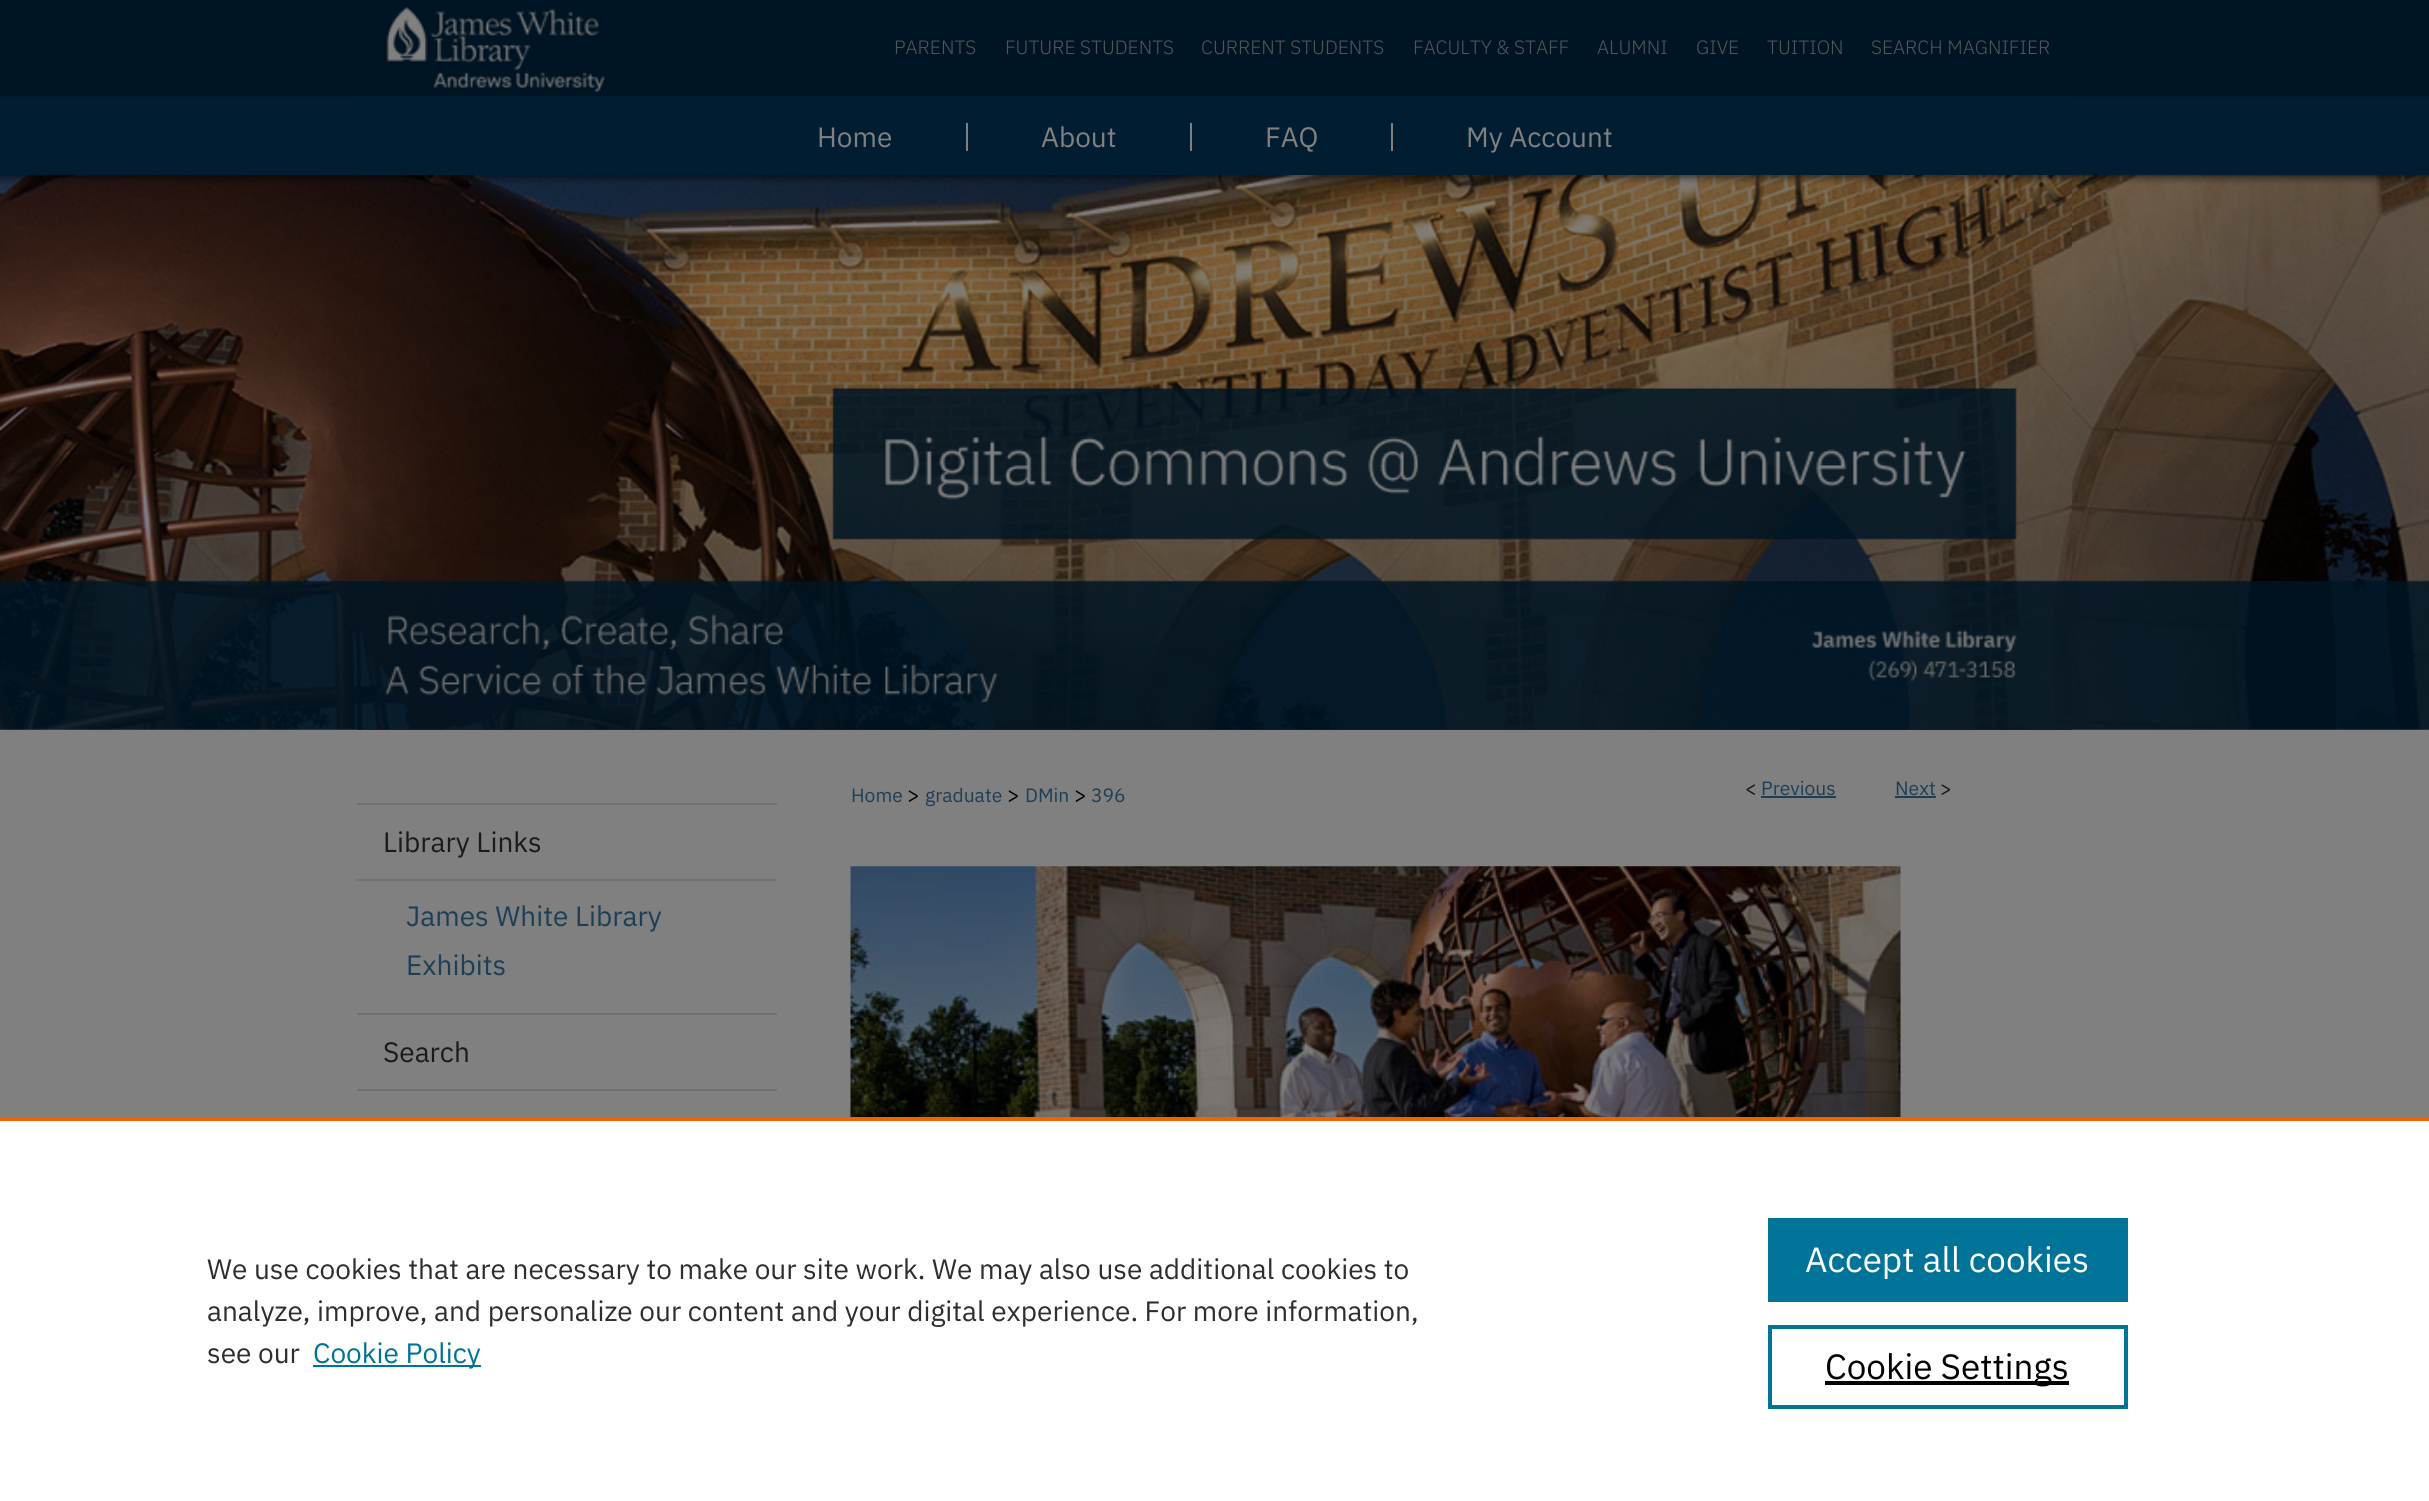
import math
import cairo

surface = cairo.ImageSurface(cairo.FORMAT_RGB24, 2429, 1501)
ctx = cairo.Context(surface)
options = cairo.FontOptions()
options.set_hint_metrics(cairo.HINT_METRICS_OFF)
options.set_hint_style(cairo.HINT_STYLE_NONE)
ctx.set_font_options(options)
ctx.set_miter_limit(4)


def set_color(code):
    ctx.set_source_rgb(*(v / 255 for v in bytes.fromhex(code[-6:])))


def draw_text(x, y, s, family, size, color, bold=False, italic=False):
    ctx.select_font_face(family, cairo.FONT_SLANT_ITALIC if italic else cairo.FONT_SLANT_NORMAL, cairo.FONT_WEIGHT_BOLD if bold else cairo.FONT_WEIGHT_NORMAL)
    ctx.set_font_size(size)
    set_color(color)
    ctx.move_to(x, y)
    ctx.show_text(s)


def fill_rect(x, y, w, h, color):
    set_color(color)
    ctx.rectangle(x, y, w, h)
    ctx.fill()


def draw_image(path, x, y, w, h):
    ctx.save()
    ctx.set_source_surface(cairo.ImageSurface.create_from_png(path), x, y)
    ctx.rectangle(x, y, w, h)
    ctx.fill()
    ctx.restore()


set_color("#808080")
ctx.paint()
draw_image("assets/img1.png", 0, 0, 2429, 730)
fill_rect(357, 96, 1715, 79, "#001d31")
draw_image("assets/img2.png", 371, 5, 408, 92)
draw_text(894, 54, "PARENTS", "IBM Plex Sans Light", 19.25, "#52565a")
draw_text(1005, 54, "FUTURE STUDENTS", "IBM Plex Sans Light", 19.25, "#52565a")
draw_text(1201, 54, "CURRENT STUDENTS", "IBM Plex Sans Light", 19.25, "#52565a")
draw_text(1413, 54, "FACULTY & STAFF", "IBM Plex Sans Light", 19.25, "#52565a")
draw_text(1597, 54, "ALUMNI", "IBM Plex Sans Light", 19.25, "#52565a")
draw_text(1696, 54, "GIVE", "IBM Plex Sans Light", 19.25, "#52565a")
draw_text(1767, 54, "TUITION", "IBM Plex Sans Light", 19.25, "#52565a")
draw_text(1871, 54, "SEARCH MAGNIFIER", "IBM Plex Sans Light", 19.25, "#52565a")
fill_rect(966, 123, 2, 28, "#808080")
draw_text(817, 147, "Home", "IBM Plex Sans", 28, "#808080")
fill_rect(1190, 123, 2, 28, "#808080")
draw_text(1041, 147, "About", "IBM Plex Sans", 28, "#808080")
fill_rect(1391, 123, 2, 28, "#808080")
draw_text(1265, 147, "FAQ", "IBM Plex Sans", 28, "#808080")
draw_text(1466, 147, "My Account", "IBM Plex Sans", 28, "#808080")
draw_image("assets/img3.png", 357, 175, 1715, 555)
draw_image("assets/img4.png", 1801, 637, 271, 93)
draw_text(851, 802, "Home", "IBM Plex Sans", 19.25, "#1d3e55")
draw_text(907, 802, ">", "IBM Plex Sans", 21, "#000000")
draw_text(925, 802, "graduate", "IBM Plex Sans", 19.25, "#1d3e55")
draw_text(1007, 802, ">", "IBM Plex Sans", 21, "#000000")
draw_text(1025, 802, "DMin", "IBM Plex Sans", 19.25, "#1d3e55")
draw_text(1074, 802, ">", "IBM Plex Sans", 21, "#000000")
draw_text(1091, 802, "396", "IBM Plex Sans", 19.25, "#1d3e55")
draw_text(1745, 795, "<", "IBM Plex Sans", 19.25, "#111111")
draw_text(1761, 795, "Previous", "IBM Plex Sans", 19.25, "#1d3e55")
fill_rect(1761, 796, 75, 2, "#1d3e55")
draw_text(1895, 795, "Next", "IBM Plex Sans", 19.25, "#1d3e55")
fill_rect(1895, 796, 41, 2, "#1d3e55")
draw_text(1940, 795, ">", "IBM Plex Sans", 19.25, "#111111")
draw_image("assets/img5.png", 850, 866, 1051, 251)
fill_rect(357, 803, 420, 2, "#717171")
fill_rect(357, 879, 420, 2, "#717171")
draw_text(383, 852, "Library Links", "IBM Plex Sans", 28, "#1a1a1a")
draw_text(406, 926, "James White Library", "IBM Plex Sans", 28, "#1d3e55")
draw_text(406, 975, "Exhibits", "IBM Plex Sans", 28, "#1d3e55")
fill_rect(357, 1013, 420, 2, "#717171")
fill_rect(357, 1089, 420, 2, "#717171")
draw_text(383, 1062, "Search", "IBM Plex Sans", 28, "#1a1a1a")
fill_rect(0, 1121, 2429, 380, "#ffffff")
fill_rect(0, 1117, 2429, 4, "#eb6500")
draw_text(207, 1279, "We use cookies that are necessary to make our site work. We may also use additional cookies to", "IBM Plex Sans", 28, "#2e2e2e")
draw_text(207, 1321, "analyze, improve, and personalize our content and your digital experience. For more information,", "IBM Plex Sans", 28, "#2e2e2e")
draw_text(207, 1363, "see our", "IBM Plex Sans", 28, "#2e2e2e")
fill_rect(313, 1365, 168, 2, "#007398")
draw_text(313, 1363, "Cookie Policy", "IBM Plex Sans", 28, "#007398")
fill_rect(1768, 1218, 360, 84, "#007398")
draw_text(1805, 1272, "Accept all cookies", "IBM Plex Sans", 35, "#ffffff")
ctx.rectangle(1770, 1327, 356, 80)
set_color("#007398")
ctx.set_line_width(4)
ctx.stroke()
fill_rect(1825, 1381, 244, 4, "#000000")
draw_text(1825, 1379, "Cookie Settings", "IBM Plex Sans", 35, "#000000")
surface.write_to_png("output.png")
